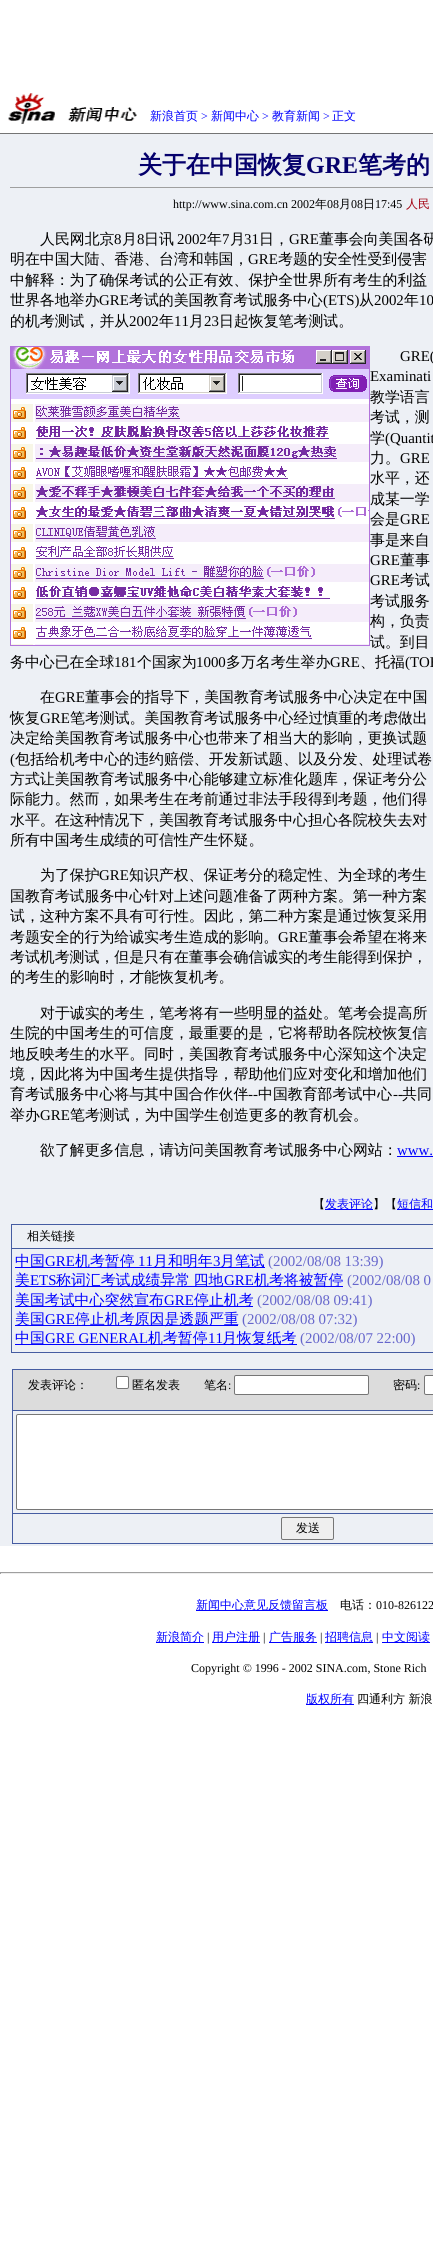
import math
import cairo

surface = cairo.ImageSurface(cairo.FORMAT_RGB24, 433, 2257)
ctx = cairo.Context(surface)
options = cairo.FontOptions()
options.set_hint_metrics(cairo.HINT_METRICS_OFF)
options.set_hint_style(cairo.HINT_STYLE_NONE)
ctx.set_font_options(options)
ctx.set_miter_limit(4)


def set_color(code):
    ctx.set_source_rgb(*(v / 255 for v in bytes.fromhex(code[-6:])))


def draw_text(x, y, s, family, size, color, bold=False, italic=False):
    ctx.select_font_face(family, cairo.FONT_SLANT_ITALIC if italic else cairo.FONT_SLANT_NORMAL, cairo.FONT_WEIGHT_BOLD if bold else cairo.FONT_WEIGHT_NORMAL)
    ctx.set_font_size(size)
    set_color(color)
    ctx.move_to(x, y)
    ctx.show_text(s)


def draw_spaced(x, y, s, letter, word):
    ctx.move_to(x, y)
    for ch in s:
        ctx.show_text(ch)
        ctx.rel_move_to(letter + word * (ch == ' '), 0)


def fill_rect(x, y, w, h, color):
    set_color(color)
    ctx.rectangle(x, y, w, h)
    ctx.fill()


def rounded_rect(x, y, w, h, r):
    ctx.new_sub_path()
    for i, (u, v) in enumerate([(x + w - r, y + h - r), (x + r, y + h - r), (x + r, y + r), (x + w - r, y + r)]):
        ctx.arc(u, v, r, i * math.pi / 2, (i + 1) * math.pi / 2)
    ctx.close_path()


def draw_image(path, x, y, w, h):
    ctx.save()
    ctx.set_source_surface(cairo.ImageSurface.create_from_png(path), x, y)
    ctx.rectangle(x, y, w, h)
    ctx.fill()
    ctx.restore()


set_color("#ffffff")
ctx.paint()
draw_image("assets/img1.png", 8, 93, 129, 31)
draw_text(150, 120, "新浪首页", "WenQuanYi Zen Hei Medium", 12, "#0000ff")
draw_text(201, 120, ">", "Liberation Serif", 12, "#0000ff")
draw_text(211, 120, "新闻中心", "WenQuanYi Zen Hei Medium", 12, "#0000ff")
draw_text(262, 120, ">", "Liberation Serif", 12, "#0000ff")
draw_text(272, 120, "教育新闻", "WenQuanYi Zen Hei Medium", 12, "#0000ff")
draw_text(323, 120, ">", "Liberation Serif", 12, "#0000ff")
draw_text(332, 120, "正文", "WenQuanYi Zen Hei Medium", 12, "#0000ff")
fill_rect(0, 133, 433, 1, "#747474")
fill_rect(0, 134, 433, 1412, "#edf0f5")
draw_text(138, 173, "关于在中国恢复", "WenQuanYi Zen Hei", 24, "#05006c", bold=True)
draw_text(306, 173, "GRE", "Liberation Serif", 24, "#05006c", bold=True)
draw_text(358, 173, "笔考的", "WenQuanYi Zen Hei", 24, "#05006c", bold=True)
fill_rect(10, 187, 423, 1, "#9f9f9f")
draw_text(173, 208, "http://www.sina.com.cn 2002", "Liberation Serif", 12, "#000000")
draw_text(315, 208, "年", "WenQuanYi Zen Hei Medium", 12, "#000000")
draw_text(327, 208, "08", "Liberation Serif", 12, "#000000")
draw_text(339, 208, "月", "WenQuanYi Zen Hei Medium", 12, "#000000")
draw_text(351, 208, "08", "Liberation Serif", 12, "#000000")
draw_text(363, 208, "日", "WenQuanYi Zen Hei Medium", 12, "#000000")
draw_text(375, 208, "17:45", "Liberation Serif", 12, "#000000")
draw_text(406, 208, "人民", "WenQuanYi Zen Hei Medium", 12, "#a20010")
draw_text(40, 244, "人民网北京", "WenQuanYi Zen Hei Medium", 14.9, "#000000")
draw_text(114, 244, "8", "Liberation Serif", 14.9, "#000000")
draw_text(122, 244, "月", "WenQuanYi Zen Hei Medium", 14.9, "#000000")
draw_text(137, 244, "8", "Liberation Serif", 14.9, "#000000")
draw_text(144, 244, "日讯", "WenQuanYi Zen Hei Medium", 14.9, "#000000")
draw_text(177, 244, "2002", "Liberation Serif", 14.9, "#000000")
draw_text(207, 244, "年", "WenQuanYi Zen Hei Medium", 14.9, "#000000")
draw_text(222, 244, "7", "Liberation Serif", 14.9, "#000000")
draw_text(230, 244, "月", "WenQuanYi Zen Hei Medium", 14.9, "#000000")
draw_text(244, 244, "31", "Liberation Serif", 14.9, "#000000")
draw_text(259, 244, "日，", "WenQuanYi Zen Hei Medium", 14.9, "#000000")
draw_text(289, 244, "GRE", "Liberation Serif", 14.9, "#000000")
draw_text(319, 244, "董事会向美国各研", "WenQuanYi Zen Hei Medium", 14.9, "#000000")
draw_text(10, 264, "明在中国大陆、香港、台湾和韩国，", "WenQuanYi Zen Hei Medium", 14.9, "#000000")
draw_text(248, 264, "GRE", "Liberation Serif", 14.9, "#000000")
draw_text(278, 264, "考题的安全性受到侵害", "WenQuanYi Zen Hei Medium", 14.9, "#000000")
draw_text(10, 285, "中解释：为了确保考试的公正有效、保护全世界所有考生的利益", "WenQuanYi Zen Hei Medium", 14.9, "#000000")
draw_text(10, 305, "世界各地举办", "WenQuanYi Zen Hei Medium", 14.9, "#000000")
draw_text(99, 305, "GRE", "Liberation Serif", 14.9, "#000000")
draw_text(129, 305, "考试的美国教育考试服务中心", "WenQuanYi Zen Hei Medium", 14.9, "#000000")
draw_text(323, 305, "(ETS)", "Liberation Serif", 14.9, "#000000")
draw_text(359, 305, "从", "WenQuanYi Zen Hei Medium", 14.9, "#000000")
draw_text(374, 305, "2002", "Liberation Serif", 14.9, "#000000")
draw_text(404, 305, "年", "WenQuanYi Zen Hei Medium", 14.9, "#000000")
draw_text(419, 305, "10", "Liberation Serif", 14.9, "#000000")
draw_text(10, 326, "的机考测试，并从", "WenQuanYi Zen Hei Medium", 14.9, "#000000")
draw_text(129, 326, "2002", "Liberation Serif", 14.9, "#000000")
draw_text(159, 326, "年", "WenQuanYi Zen Hei Medium", 14.9, "#000000")
draw_text(174, 326, "11", "Liberation Serif", 14.9, "#000000")
draw_text(189, 326, "月", "WenQuanYi Zen Hei Medium", 14.9, "#000000")
draw_text(204, 326, "23", "Liberation Serif", 14.9, "#000000")
draw_text(219, 326, "日起恢复笔考测试。", "WenQuanYi Zen Hei Medium", 14.9, "#000000")
draw_image("assets/img2.png", 10, 346, 360, 300)
draw_text(400, 361, "GRE(", "Liberation Serif", 14.9, "#000000")
draw_text(370, 381, "Examinati", "Liberation Serif", 14.9, "#000000")
draw_text(370, 402, "教学语言", "WenQuanYi Zen Hei Medium", 14.9, "#000000")
draw_text(370, 422, "考试，测", "WenQuanYi Zen Hei Medium", 14.9, "#000000")
draw_text(370, 443, "学", "WenQuanYi Zen Hei Medium", 14.9, "#000000")
draw_text(385, 443, "(Quantit", "Liberation Serif", 14.9, "#000000")
draw_text(370, 463, "力。", "WenQuanYi Zen Hei Medium", 14.9, "#000000")
draw_text(400, 463, "GRE", "Liberation Serif", 14.9, "#000000")
draw_text(370, 483, "水平，还", "WenQuanYi Zen Hei Medium", 14.9, "#000000")
draw_text(370, 504, "成某一学", "WenQuanYi Zen Hei Medium", 14.9, "#000000")
draw_text(370, 524, "会是", "WenQuanYi Zen Hei Medium", 14.9, "#000000")
draw_text(400, 524, "GRE", "Liberation Serif", 14.9, "#000000")
draw_text(370, 545, "事是来自", "WenQuanYi Zen Hei Medium", 14.9, "#000000")
draw_text(370, 565, "GRE", "Liberation Serif", 14.9, "#000000")
draw_text(400, 565, "董事", "WenQuanYi Zen Hei Medium", 14.9, "#000000")
draw_text(370, 585, "GRE", "Liberation Serif", 14.9, "#000000")
draw_text(400, 585, "考试", "WenQuanYi Zen Hei Medium", 14.9, "#000000")
draw_text(370, 606, "考试服务", "WenQuanYi Zen Hei Medium", 14.9, "#000000")
draw_text(370, 626, "构，负责", "WenQuanYi Zen Hei Medium", 14.9, "#000000")
draw_text(370, 647, "试。到目", "WenQuanYi Zen Hei Medium", 14.9, "#000000")
draw_text(10, 667, "务中心已在全球", "WenQuanYi Zen Hei Medium", 14.9, "#000000")
draw_text(114, 667, "181", "Liberation Serif", 14.9, "#000000")
draw_text(137, 667, "个国家为", "WenQuanYi Zen Hei Medium", 14.9, "#000000")
draw_text(196, 667, "1000", "Liberation Serif", 14.9, "#000000")
draw_text(226, 667, "多万名考生举办", "WenQuanYi Zen Hei Medium", 14.9, "#000000")
draw_text(330, 667, "GRE", "Liberation Serif", 14.9, "#000000")
draw_text(360, 667, "、托福", "WenQuanYi Zen Hei Medium", 14.9, "#000000")
draw_text(405, 667, "(TOE", "Liberation Serif", 14.9, "#000000")
draw_text(40, 702, "在", "WenQuanYi Zen Hei Medium", 14.9, "#000000")
draw_text(55, 702, "GRE", "Liberation Serif", 14.9, "#000000")
draw_text(85, 702, "董事会的指导下，美国教育考试服务中心决定在中国", "WenQuanYi Zen Hei Medium", 14.9, "#000000")
draw_text(10, 723, "恢复", "WenQuanYi Zen Hei Medium", 14.9, "#000000")
draw_text(40, 723, "GRE", "Liberation Serif", 14.9, "#000000")
draw_text(70, 723, "笔考测试。美国教育考试服务中心经过慎重的考虑做出", "WenQuanYi Zen Hei Medium", 14.9, "#000000")
draw_text(10, 743, "决定给美国教育考试服务中心也带来了相当大的影响，更换试题", "WenQuanYi Zen Hei Medium", 14.9, "#000000")
draw_text(10, 764, "(", "Liberation Serif", 14.9, "#000000")
draw_text(15, 764, "包括给机考中心的违约赔偿、开发新试题、以及分发、处理试卷", "WenQuanYi Zen Hei Medium", 14.9, "#000000")
draw_text(10, 784, "方式让美国教育考试服务中心能够建立标准化题库，保证考分公", "WenQuanYi Zen Hei Medium", 14.9, "#000000")
draw_text(10, 804, "际能力。然而，如果考生在考前通过非法手段得到考题，他们得", "WenQuanYi Zen Hei Medium", 14.9, "#000000")
draw_text(10, 825, "水平。在这种情况下，美国教育考试服务中心担心各院校失去对", "WenQuanYi Zen Hei Medium", 14.9, "#000000")
draw_text(10, 845, "所有中国考生成绩的可信性产生怀疑。", "WenQuanYi Zen Hei Medium", 14.9, "#000000")
draw_text(40, 880, "为了保护", "WenQuanYi Zen Hei Medium", 14.9, "#000000")
draw_text(99, 880, "GRE", "Liberation Serif", 14.9, "#000000")
draw_text(129, 880, "知识产权、保证考分的稳定性、为全球的考生", "WenQuanYi Zen Hei Medium", 14.9, "#000000")
draw_text(10, 901, "国教育考试服务中心针对上述问题准备了两种方案。第一种方案", "WenQuanYi Zen Hei Medium", 14.9, "#000000")
draw_text(10, 921, "试，这种方案不具有可行性。因此，第二种方案是通过恢复采用", "WenQuanYi Zen Hei Medium", 14.9, "#000000")
draw_text(10, 942, "考题安全的行为给诚实考生造成的影响。", "WenQuanYi Zen Hei Medium", 14.9, "#000000")
draw_text(278, 942, "GRE", "Liberation Serif", 14.9, "#000000")
draw_text(308, 942, "董事会希望在将来", "WenQuanYi Zen Hei Medium", 14.9, "#000000")
draw_text(10, 962, "考试机考测试，但是只有在董事会确信诚实的考生能得到保护，", "WenQuanYi Zen Hei Medium", 14.9, "#000000")
draw_text(10, 982, "的考生的影响时，才能恢复机考。", "WenQuanYi Zen Hei Medium", 14.9, "#000000")
draw_text(40, 1018, "对于诚实的考生，笔考将有一些明显的益处。笔考会提高所", "WenQuanYi Zen Hei Medium", 14.9, "#000000")
draw_text(10, 1038, "生院的中国考生的可信度，最重要的是，它将帮助各院校恢复信", "WenQuanYi Zen Hei Medium", 14.9, "#000000")
draw_text(10, 1059, "地反映考生的水平。同时，美国教育考试服务中心深知这个决定", "WenQuanYi Zen Hei Medium", 14.9, "#000000")
draw_text(10, 1079, "境，因此将为中国考生提供指导，帮助他们应对变化和增加他们", "WenQuanYi Zen Hei Medium", 14.9, "#000000")
draw_text(10, 1099, "育考试服务中心将与其中国合作伙伴", "WenQuanYi Zen Hei Medium", 14.9, "#000000")
draw_text(248, 1099, "--", "Liberation Serif", 14.9, "#000000")
draw_text(258, 1099, "中国教育部考试中心", "WenQuanYi Zen Hei Medium", 14.9, "#000000")
draw_text(393, 1099, "--", "Liberation Serif", 14.9, "#000000")
draw_text(402, 1099, "共同", "WenQuanYi Zen Hei Medium", 14.9, "#000000")
draw_text(10, 1120, "举办", "WenQuanYi Zen Hei Medium", 14.9, "#000000")
draw_text(40, 1120, "GRE", "Liberation Serif", 14.9, "#000000")
draw_text(70, 1120, "笔考测试，为中国学生创造更多的教育机会。", "WenQuanYi Zen Hei Medium", 14.9, "#000000")
draw_text(40, 1155, "欲了解更多信息，请访问美国教育考试服务中心网站：", "WenQuanYi Zen Hei Medium", 14.9, "#000000")
draw_text(397, 1155, "www.", "Liberation Serif", 14.9, "#0000ff")
fill_rect(397, 1156, 36, 1, "#0000ff")
draw_text(313, 1208, "【", "WenQuanYi Zen Hei Medium", 12, "#000000")
fill_rect(325, 1209, 48, 1, "#0000ff")
draw_text(325, 1208, "发表评论", "WenQuanYi Zen Hei Medium", 12, "#0000ff")
draw_text(373, 1208, "】【", "WenQuanYi Zen Hei Medium", 12, "#000000")
fill_rect(397, 1209, 36, 1, "#0000ff")
draw_text(397, 1208, "短信和", "WenQuanYi Zen Hei Medium", 12, "#0000ff")
fill_rect(11, 1224, 422, 129, "#455ca2")
fill_rect(12, 1225, 421, 23, "#edf0f5")
draw_text(27, 1240, "相关链接", "WenQuanYi Zen Hei Medium", 12, "#000000")
fill_rect(12, 1249, 421, 103, "#edf0f5")
fill_rect(15, 1267, 250, 1, "#0000ff")
draw_text(15, 1266, "中国", "WenQuanYi Zen Hei Medium", 14.9, "#0000ff")
draw_text(45, 1266, "GRE", "Liberation Serif", 14.9, "#0000ff")
draw_text(75, 1266, "机考暂停", "WenQuanYi Zen Hei Medium", 14.9, "#0000ff")
draw_text(138, 1266, "11", "Liberation Serif", 14.9, "#0000ff")
draw_text(153, 1266, "月和明年", "WenQuanYi Zen Hei Medium", 14.9, "#0000ff")
draw_text(213, 1266, "3", "Liberation Serif", 14.9, "#0000ff")
draw_text(220, 1266, "月笔试", "WenQuanYi Zen Hei Medium", 14.9, "#0000ff")
draw_text(268, 1266, "(2002/08/08 13:39)", "Liberation Serif", 14.9, "#6666cc")
fill_rect(15, 1286, 328, 1, "#0000ff")
draw_text(15, 1285, "美", "WenQuanYi Zen Hei Medium", 14.9, "#0000ff")
draw_text(30, 1285, "ETS", "Liberation Serif", 14.9, "#0000ff")
ctx.select_font_face("WenQuanYi Zen Hei Medium")
draw_spaced(56, 1285, "称词汇考试成绩异常 四地", 0, -1)
draw_text(224, 1285, "GRE", "Liberation Serif", 14.9, "#0000ff")
draw_text(254, 1285, "机考将被暂停", "WenQuanYi Zen Hei Medium", 14.9, "#0000ff")
draw_text(347, 1285, "(2002/08/08 0", "Liberation Serif", 14.9, "#6666cc")
fill_rect(15, 1306, 238, 1, "#0000ff")
draw_text(15, 1305, "美国考试中心突然宣布", "WenQuanYi Zen Hei Medium", 14.9, "#0000ff")
draw_text(164, 1305, "GRE", "Liberation Serif", 14.9, "#0000ff")
draw_text(194, 1305, "停止机考", "WenQuanYi Zen Hei Medium", 14.9, "#0000ff")
draw_text(257, 1305, "(2002/08/08 09:41)", "Liberation Serif", 14.9, "#6666cc")
fill_rect(15, 1325, 223, 1, "#0000ff")
draw_text(15, 1324, "美国", "WenQuanYi Zen Hei Medium", 14.9, "#0000ff")
draw_text(45, 1324, "GRE", "Liberation Serif", 14.9, "#0000ff")
draw_text(75, 1324, "停止机考原因是透题严重", "WenQuanYi Zen Hei Medium", 14.9, "#0000ff")
draw_text(242, 1324, "(2002/08/08 07:32)", "Liberation Serif", 14.9, "#6666cc")
fill_rect(15, 1344, 282, 1, "#0000ff")
draw_text(15, 1343, "中国", "WenQuanYi Zen Hei Medium", 14.9, "#0000ff")
draw_text(45, 1343, "GRE GENERAL", "Liberation Serif", 14.9, "#0000ff")
draw_text(148, 1343, "机考暂停", "WenQuanYi Zen Hei Medium", 14.9, "#0000ff")
draw_text(208, 1343, "11", "Liberation Serif", 14.9, "#0000ff")
draw_text(222, 1343, "月恢复纸考", "WenQuanYi Zen Hei Medium", 14.9, "#0000ff")
draw_text(300, 1343, "(2002/08/07 22:00)", "Liberation Serif", 14.9, "#6666cc")
fill_rect(12, 1369, 421, 175, "#455ca2")
fill_rect(13, 1370, 420, 40, "#dcdcdc")
draw_text(28, 1389, "发表评论：", "WenQuanYi Zen Hei Medium", 12, "#000000")
set_color("#ffffff")
rounded_rect(116.5, 1376.5, 12, 12, 1.5)
ctx.fill_preserve()
set_color("#767676")
ctx.set_line_width(1)
ctx.stroke()
draw_text(132, 1389, "匿名发表　　笔名", "WenQuanYi Zen Hei Medium", 12, "#000000")
draw_text(228, 1389, ":", "Liberation Serif", 12, "#000000")
set_color("#ffffff")
rounded_rect(234.5, 1375.5, 134, 19, 1.5)
ctx.fill_preserve()
set_color("#767676")
ctx.stroke()
draw_text(393, 1389, "密码", "WenQuanYi Zen Hei Medium", 12, "#000000")
draw_text(417, 1389, ":", "Liberation Serif", 12, "#000000")
set_color("#ffffff")
rounded_rect(424.5, 1375.5, 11, 19, 1.5)
ctx.fill_preserve()
set_color("#767676")
ctx.stroke()
fill_rect(13, 1411, 420, 102, "#edf0f5")
set_color("#ffffff")
rounded_rect(16.5, 1414.5, 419, 95, 1.5)
ctx.fill_preserve()
set_color("#767676")
ctx.stroke()
fill_rect(13, 1514, 420, 29, "#edf0f5")
set_color("#efefef")
rounded_rect(281.5, 1517.5, 52, 22, 1.5)
ctx.fill_preserve()
set_color("#767676")
ctx.stroke()
draw_text(296, 1532, "发送", "WenQuanYi Zen Hei Medium", 12, "#000000")
fill_rect(0, 1572, 433, 1, "#9f9f9f")
fill_rect(0, 1573, 433, 1, "#eeeeee")
fill_rect(0, 1572, 1, 2, "#9f9f9f")
fill_rect(196, 1610, 132, 1, "#0000ff")
draw_text(196, 1609, "新闻中心意见反馈留言板", "WenQuanYi Zen Hei Medium", 12, "#0000ff")
draw_text(340, 1609, "电话：", "WenQuanYi Zen Hei Medium", 12, "#000000")
draw_text(376, 1609, "010-826122", "Liberation Serif", 12, "#000000")
fill_rect(156, 1642, 48, 1, "#0000ff")
draw_text(156, 1641, "新浪简介", "WenQuanYi Zen Hei Medium", 12, "#0000ff")
draw_text(207, 1641, "|", "Liberation Serif", 12, "#000000")
fill_rect(212, 1642, 48, 1, "#0000ff")
draw_text(212, 1641, "用户注册", "WenQuanYi Zen Hei Medium", 12, "#0000ff")
draw_text(263, 1641, "|", "Liberation Serif", 12, "#000000")
fill_rect(269, 1642, 48, 1, "#0000ff")
draw_text(269, 1641, "广告服务", "WenQuanYi Zen Hei Medium", 12, "#0000ff")
draw_text(320, 1641, "|", "Liberation Serif", 12, "#000000")
fill_rect(325, 1642, 48, 1, "#0000ff")
draw_text(325, 1641, "招聘信息", "WenQuanYi Zen Hei Medium", 12, "#0000ff")
draw_text(376, 1641, "|", "Liberation Serif", 12, "#000000")
fill_rect(382, 1642, 48, 1, "#0000ff")
draw_text(382, 1641, "中文阅读", "WenQuanYi Zen Hei Medium", 12, "#0000ff")
draw_text(191, 1672, "Copyright © 1996 - 2002 SINA.com, Stone Rich", "Liberation Serif", 12, "#000000")
fill_rect(306, 1704, 48, 1, "#0000ff")
draw_text(306, 1703, "版权所有", "WenQuanYi Zen Hei Medium", 12, "#0000ff")
draw_text(357, 1703, "四通利方 新浪", "WenQuanYi Zen Hei Medium", 12, "#000000")
surface.write_to_png("output.png")
